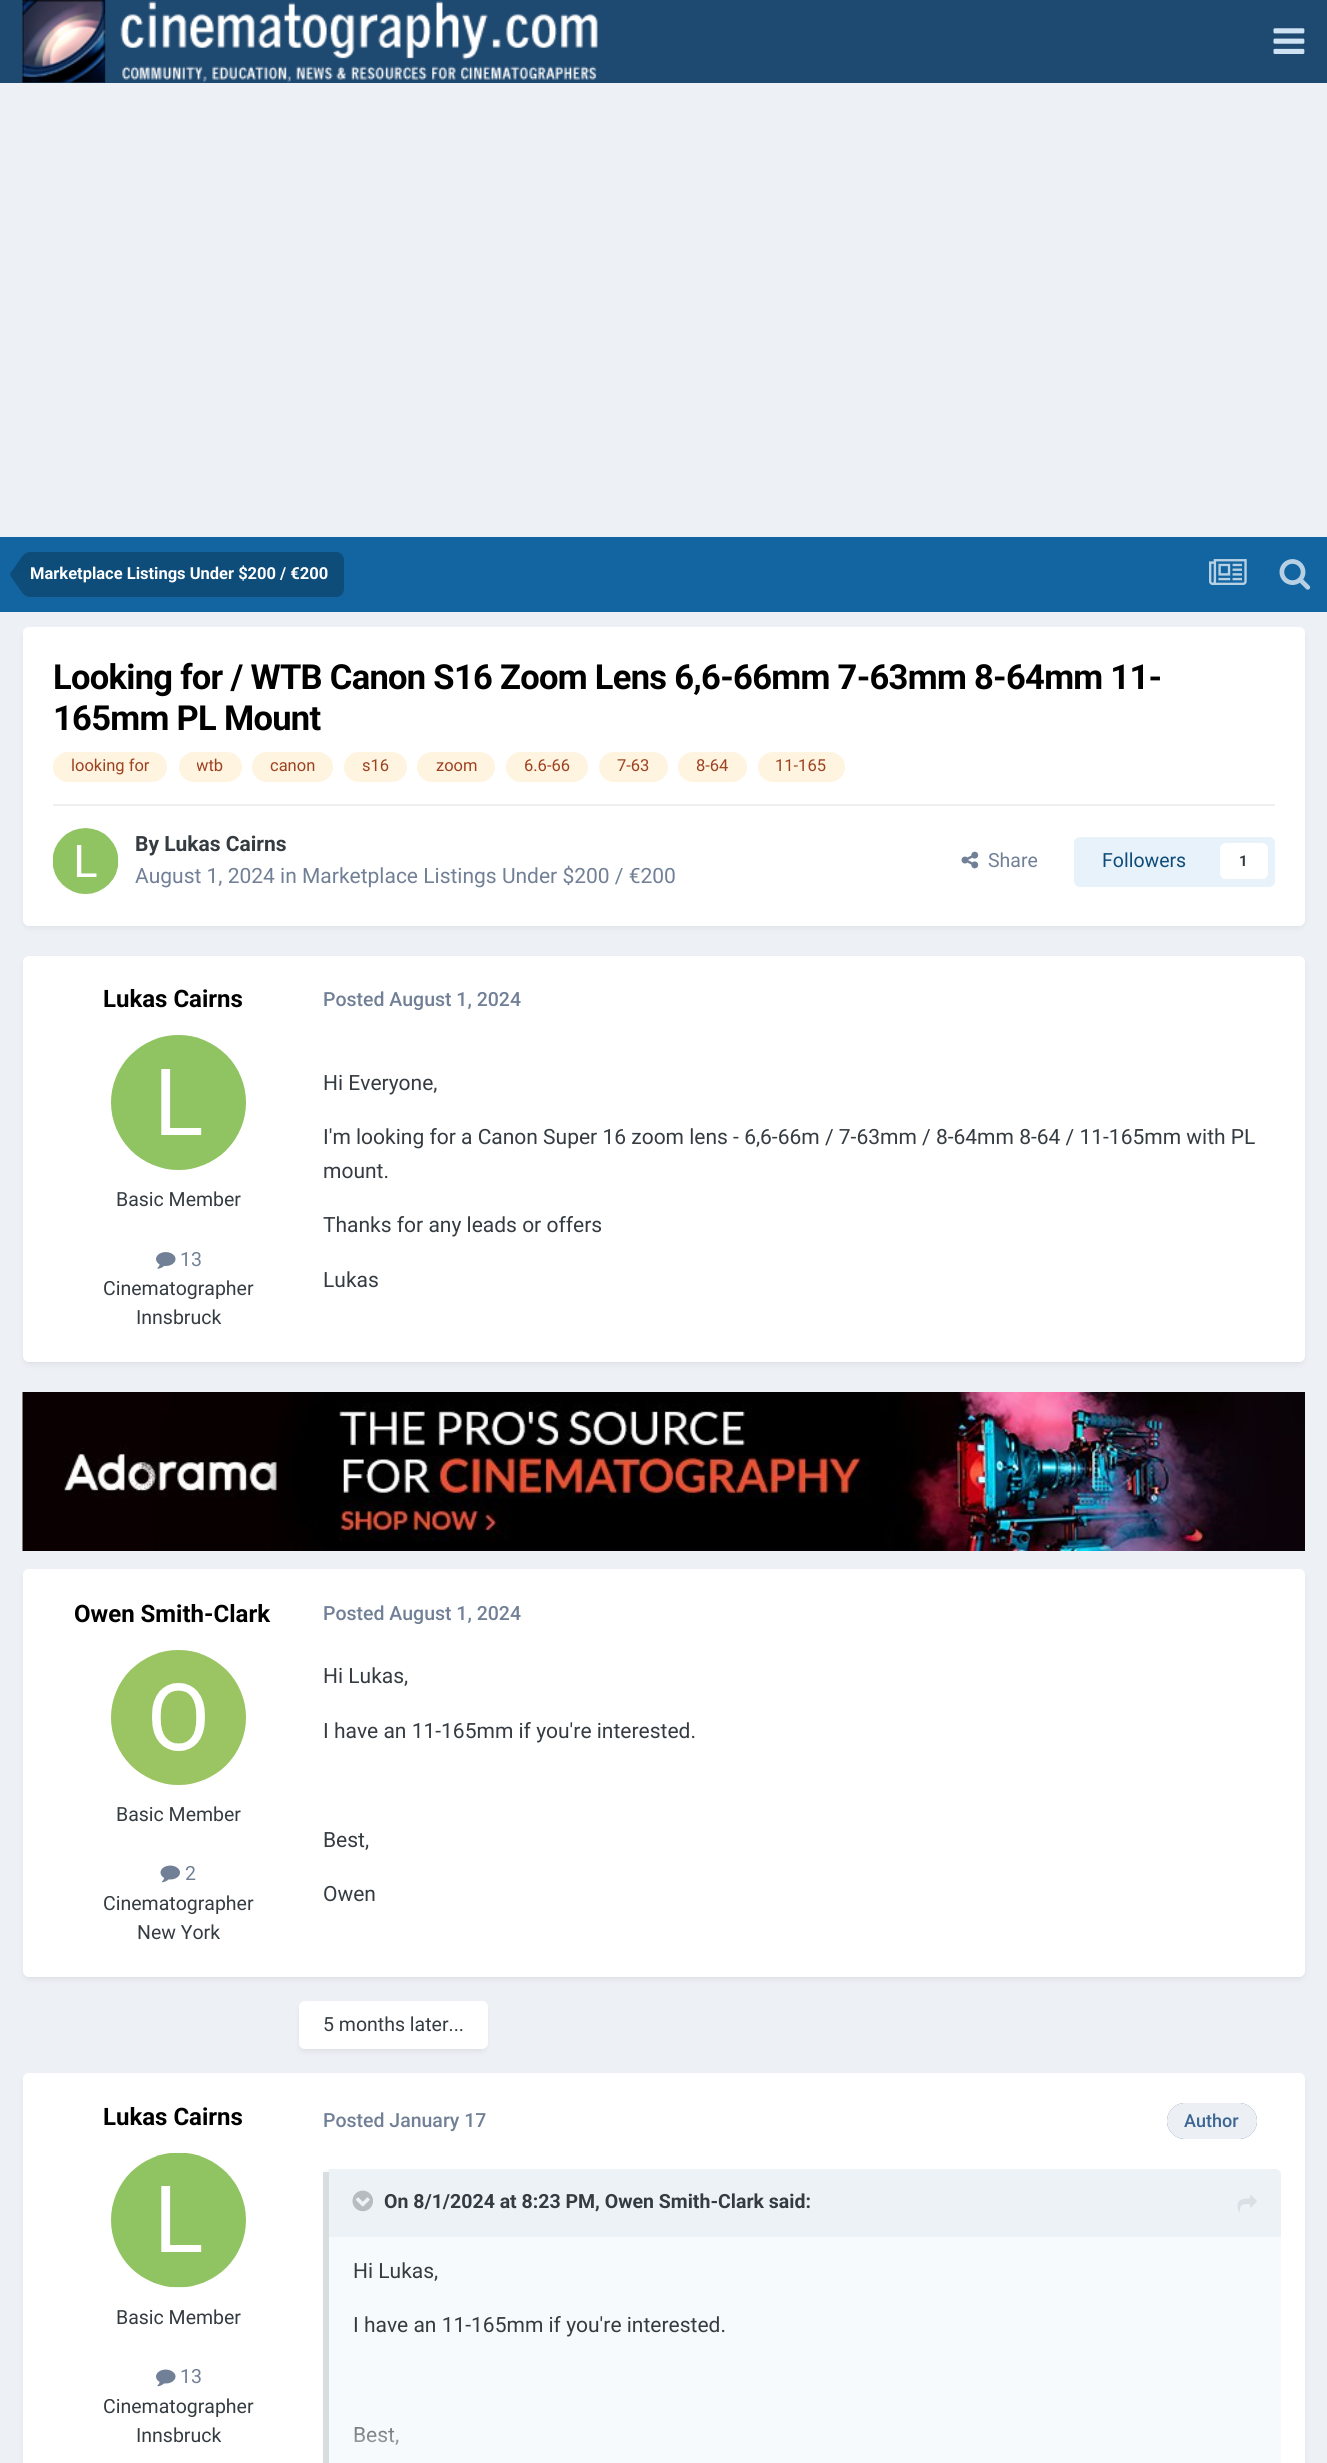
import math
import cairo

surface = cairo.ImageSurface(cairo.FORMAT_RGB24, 1327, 2463)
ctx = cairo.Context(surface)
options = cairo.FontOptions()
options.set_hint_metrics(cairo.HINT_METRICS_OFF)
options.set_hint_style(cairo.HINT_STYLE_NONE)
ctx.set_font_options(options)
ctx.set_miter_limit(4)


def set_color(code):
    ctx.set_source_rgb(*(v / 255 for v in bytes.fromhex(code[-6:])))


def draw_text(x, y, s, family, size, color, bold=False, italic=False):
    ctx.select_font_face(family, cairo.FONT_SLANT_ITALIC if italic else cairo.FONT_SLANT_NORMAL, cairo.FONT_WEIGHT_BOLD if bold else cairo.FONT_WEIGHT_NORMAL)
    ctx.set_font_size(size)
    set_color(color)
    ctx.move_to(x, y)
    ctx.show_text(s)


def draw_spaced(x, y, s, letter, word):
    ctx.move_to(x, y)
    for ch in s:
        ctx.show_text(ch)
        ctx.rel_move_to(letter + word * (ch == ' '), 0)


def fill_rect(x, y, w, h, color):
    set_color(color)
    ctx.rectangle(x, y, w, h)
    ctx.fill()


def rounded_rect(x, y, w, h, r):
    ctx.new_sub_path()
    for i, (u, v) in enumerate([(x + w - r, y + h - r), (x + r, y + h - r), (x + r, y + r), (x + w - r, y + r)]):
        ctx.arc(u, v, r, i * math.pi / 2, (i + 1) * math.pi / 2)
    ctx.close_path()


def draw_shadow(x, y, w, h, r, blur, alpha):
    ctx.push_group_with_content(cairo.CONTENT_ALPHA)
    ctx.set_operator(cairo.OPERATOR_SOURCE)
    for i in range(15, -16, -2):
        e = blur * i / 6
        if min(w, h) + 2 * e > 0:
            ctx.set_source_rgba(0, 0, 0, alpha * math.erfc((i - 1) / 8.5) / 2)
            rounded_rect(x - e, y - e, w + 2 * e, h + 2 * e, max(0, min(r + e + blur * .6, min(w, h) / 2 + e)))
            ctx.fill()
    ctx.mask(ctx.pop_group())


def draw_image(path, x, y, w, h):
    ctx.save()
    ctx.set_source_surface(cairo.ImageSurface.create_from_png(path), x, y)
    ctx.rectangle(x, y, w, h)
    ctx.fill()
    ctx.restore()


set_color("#edf0f4")
ctx.paint()
fill_rect(0, 0, 1327, 83, "#1e4970")
draw_image("assets/img1.png", 22, 0, 576, 83)
draw_image("assets/img2.png", 1273, 28, 32, 26)
fill_rect(0, 537, 1327, 75, "#1265a1")
set_color("#0e4c79")
ctx.new_path()
ctx.move_to(30, 552)
ctx.line_to(336, 552)
ctx.curve_to(340.5, 552, 344, 555.5, 344, 560)
ctx.line_to(344, 589)
ctx.curve_to(344, 593.5, 340.5, 597, 336, 597)
ctx.line_to(30, 597)
ctx.close_path()
ctx.fill()
ctx.new_path()
ctx.move_to(10.5, 576)
ctx.line_to(10, 574.5)
ctx.line_to(30, 574.5)
ctx.line_to(30, 597)
ctx.curve_to(27, 597, 23.5, 595, 21, 591)
ctx.close_path()
ctx.fill()
ctx.set_source_rgba(0, 0, 0, 0.25)
ctx.new_path()
ctx.move_to(30, 552)
ctx.line_to(30, 574.5)
ctx.line_to(10, 574.5)
ctx.line_to(10.5, 573)
ctx.line_to(21, 558)
ctx.curve_to(23.5, 554, 27, 552, 30, 552)
ctx.close_path()
ctx.fill()
draw_text(30, 579, "Marketplace Listings Under $200 / €200", "Roboto", 16.5, "#ffffff", bold=True)
draw_image("assets/img3.png", 1209, 559, 38, 26)
draw_image("assets/img4.png", 1279, 559, 32, 31)
set_color("#2d3748")
draw_shadow(24, 632, 1280, 295, 5, 3, 0.1)
set_color("#ffffff")
rounded_rect(23, 627, 1282, 299, 6)
ctx.fill()
ctx.set_font_size(34.5)
set_color("#000000")
draw_spaced(53, 689, "Looking for / WTB Canon S16 Zoom Lens 6,6-66mm 7-63mm 8-64mm 11-", -0.7, 0)
draw_spaced(53, 730, "165mm PL Mount", -0.7, 0)
set_color("#fff4df")
rounded_rect(53, 752, 114, 30, 15)
ctx.fill()
draw_text(71, 771, "looking for", "Roboto", 16.5, "#9c4221")
set_color("#fff4df")
rounded_rect(179, 752, 63, 30, 15)
ctx.fill()
ctx.save()
ctx.rectangle(197, 752, 27, 30)
ctx.clip()
draw_text(196, 771, "wtb", "Roboto", 16.5, "#9c4221")
ctx.restore()
rounded_rect(252, 752, 81, 30, 15)
ctx.fill()
draw_text(270, 771, "canon", "Roboto", 16.5, "#9c4221")
set_color("#fff4df")
rounded_rect(344, 752, 63, 30, 15)
ctx.fill()
draw_text(362, 771, "s16", "Roboto", 16.5, "#9c4221")
set_color("#fff4df")
rounded_rect(417, 752, 78, 30, 15)
ctx.fill()
draw_text(436, 771, "zoom", "Roboto", 16.5, "#9c4221")
set_color("#fff4df")
rounded_rect(506, 752, 82, 30, 15)
ctx.fill()
draw_text(524, 771, "6.6-66", "Roboto", 16.5, "#9c4221")
set_color("#fff4df")
rounded_rect(599, 752, 69, 30, 15)
ctx.fill()
draw_text(617, 771, "7-63", "Roboto", 16.5, "#9c4221")
set_color("#fff4df")
rounded_rect(678, 752, 69, 30, 15)
ctx.fill()
draw_text(696, 771, "8-64", "Roboto", 16.5, "#9c4221")
set_color("#fff4df")
rounded_rect(758, 752, 87, 30, 15)
ctx.fill()
draw_text(775, 771, "11-165", "Roboto", 16.5, "#9c4221")
fill_rect(53, 804, 1222, 2, "#efeff0")
draw_image("assets/img5.png", 53, 828, 66, 66)
draw_text(135, 851, "By Lukas Cairns", "Roboto", 21, "#353c41", bold=True)
draw_text(135, 883, "August 1, 2024 in Marketplace Listings Under $200 / €200", "Roboto", 21, "#718096")
draw_image("assets/img6.png", 961, 851, 18, 18)
draw_text(988, 867, "Share", "Roboto", 19.5, "#718096")
set_color("#e8f2fa")
rounded_rect(1074, 837, 201, 50, 6)
ctx.fill()
draw_text(1102, 867, "Followers", "Roboto", 19.5, "#0e4c79")
set_color("#ffffff")
rounded_rect(1220, 843, 48, 36, 6)
ctx.fill()
draw_text(1239, 866, "1", "Roboto", 15, "#353c41", bold=True)
set_color("#2d3748")
draw_shadow(24, 960, 1280, 404, 5, 3, 0.1)
set_color("#ffffff")
rounded_rect(23, 956, 1282, 406, 6)
ctx.fill()
draw_text(103, 1007, "Lukas Cairns", "Roboto", 24, "#000000", bold=True)
draw_image("assets/img7.png", 111, 1035, 135, 135)
draw_text(116, 1206, "Basic Member", "Roboto", 19.5, "#353c41")
draw_image("assets/img8.png", 156, 1252, 20, 17)
draw_text(180, 1266, "13", "Roboto", 19.5, "#718096")
draw_text(103, 1295, "Cinematographer", "Roboto", 19.5, "#353c41")
draw_text(136, 1324, "Innsbruck", "Roboto", 19.5, "#353c41")
draw_text(323, 1006, "Posted August 1, 2024", "Roboto Medium", 19.5, "#718096")
draw_text(323, 1090, "Hi Everyone,", "Roboto", 21, "#353c41")
draw_text(323, 1144, "I'm looking for a Canon Super 16 zoom lens - 6,6-66m / 7-63mm / 8-64mm 8-64 / 11-165mm with PL", "Roboto", 21, "#353c41")
draw_text(323, 1178, "mount.", "Roboto", 21, "#353c41")
draw_text(323, 1232, "Thanks for any leads or offers", "Roboto", 21, "#353c41")
draw_text(323, 1287, "Lukas", "Roboto", 21, "#353c41")
draw_image("assets/img9.png", 22, 1392, 1283, 159)
set_color("#2d3748")
draw_shadow(24, 1574, 1280, 405, 5, 3, 0.1)
set_color("#ffffff")
rounded_rect(23, 1569, 1282, 408, 6)
ctx.fill()
draw_text(74, 1622, "Owen Smith-Clark", "Roboto", 24, "#000000", bold=True)
draw_image("assets/img10.png", 111, 1650, 135, 135)
draw_text(116, 1821, "Basic Member", "Roboto", 19.5, "#353c41")
draw_image("assets/img11.png", 160, 1865, 20, 18)
draw_text(185, 1880, "2", "Roboto", 19.5, "#718096")
draw_text(103, 1910, "Cinematographer", "Roboto", 19.5, "#353c41")
draw_text(137, 1939, "New York", "Roboto", 19.5, "#353c41")
draw_text(323, 1620, "Posted August 1, 2024", "Roboto Medium", 19.5, "#718096")
draw_text(323, 1683, "Hi Lukas,", "Roboto", 21, "#353c41")
draw_text(323, 1738, "I have an 11-165mm if you're interested.", "Roboto", 21, "#353c41")
draw_text(323, 1847, "Best,", "Roboto", 21, "#353c41")
draw_text(323, 1901, "Owen", "Roboto", 21, "#353c41")
set_color("#2d3748")
draw_shadow(300, 2006, 186, 45, 5, 3, 0.1)
set_color("#ffffff")
rounded_rect(299, 2001, 189, 48, 6)
ctx.fill()
draw_text(323, 2031, "5 months later...", "Roboto", 19.5, "#353c41")
set_color("#2d3748")
draw_shadow(24, 2078, 1280, 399, 5, 3, 0.1)
set_color("#ffffff")
rounded_rect(23, 2073, 1282, 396, 6)
ctx.fill()
draw_text(103, 2125, "Lukas Cairns", "Roboto", 24, "#000000", bold=True)
draw_image("assets/img12.png", 111, 2153, 135, 135)
draw_text(116, 2324, "Basic Member", "Roboto", 19.5, "#353c41")
draw_image("assets/img13.png", 156, 2369, 20, 18)
draw_text(180, 2383, "13", "Roboto", 19.5, "#718096")
draw_text(103, 2413, "Cinematographer", "Roboto", 19.5, "#353c41")
draw_text(136, 2442, "Innsbruck", "Roboto", 19.5, "#353c41")
draw_text(323, 2127, "Posted January 17", "Roboto Medium", 19.5, "#718096")
set_color("#3d6594")
rounded_rect(1167, 2103, 90, 36, 18)
ctx.fill()
ctx.set_source_rgba(1, 1, 1, 0.9)
rounded_rect(1167, 2103, 90, 36, 18)
ctx.fill()
draw_text(1184, 2127, "Author", "Roboto Medium", 18, "#3d6594")
set_color("#f7fafc")
rounded_rect(323, 2169, 958, 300, 6)
ctx.fill()
ctx.set_source_rgba(0.176, 0.216, 0.282, 0.15)
ctx.rectangle(323, 2172, 6, 291)
ctx.fill()
set_color("#edf2f7")
ctx.new_path()
ctx.move_to(329, 2169)
ctx.line_to(1275, 2169)
ctx.curve_to(1278.5, 2169, 1281, 2171.5, 1281, 2175)
ctx.line_to(1281, 2237)
ctx.line_to(329, 2237)
ctx.close_path()
ctx.fill()
draw_image("assets/img14.png", 352, 2190, 21, 22)
draw_text(384, 2208, "On 8/1/2024 at 8:23 PM, Owen Smith-Clark said:", "Roboto", 19.5, "#353c41", bold=True)
draw_image("assets/img15.png", 1237, 2195, 20, 17)
draw_text(353, 2278, "Hi Lukas,", "Roboto", 21, "#353c41")
draw_text(353, 2332, "I have an 11-165mm if you're interested.", "Roboto", 21, "#353c41")
draw_text(353, 2442, "Best,", "Roboto", 21, "#353c41")
gradient = cairo.LinearGradient(805, 2399, 805, 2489)
gradient.add_color_stop_rgba(0, 0.969, 0.98, 0.988, 0.01)
gradient.add_color_stop_rgba(1, 0.969, 0.98, 0.988, 0.99)
ctx.set_source(gradient)
ctx.rectangle(354, 2427, 44, 18)
ctx.fill()
surface.write_to_png("output.png")
